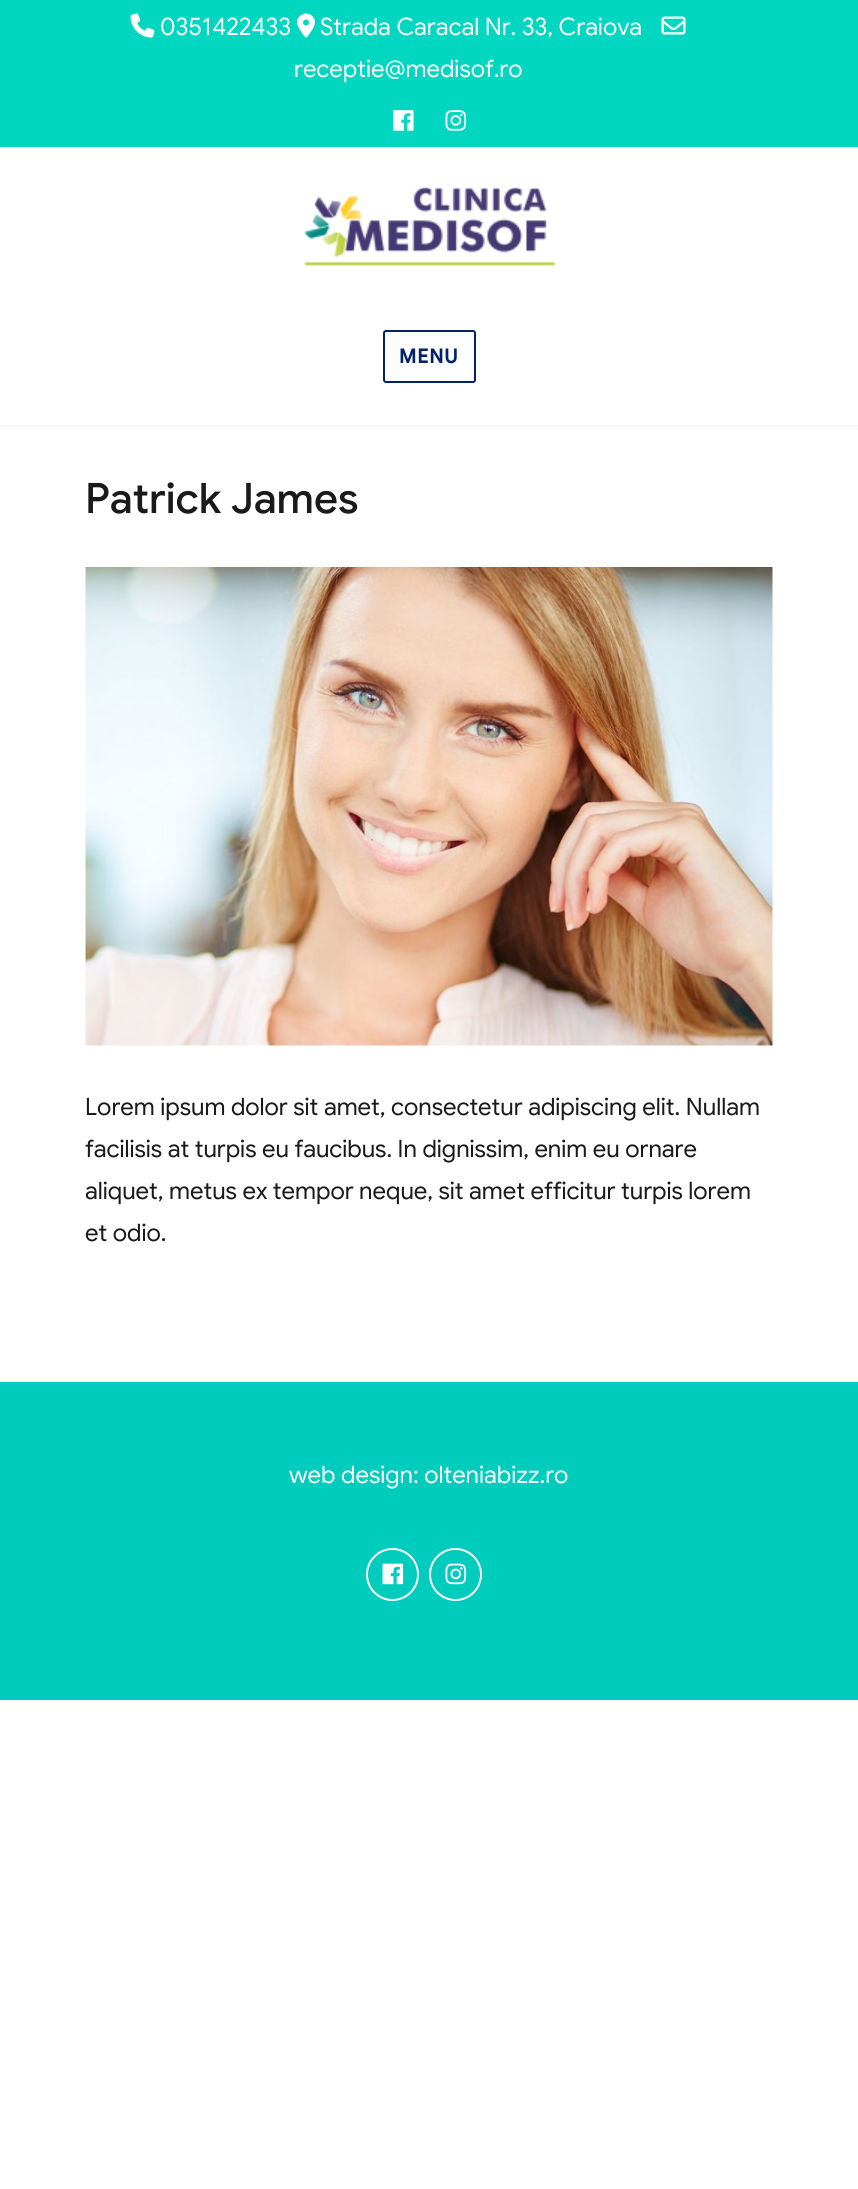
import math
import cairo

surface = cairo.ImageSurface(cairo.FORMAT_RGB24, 858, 2189)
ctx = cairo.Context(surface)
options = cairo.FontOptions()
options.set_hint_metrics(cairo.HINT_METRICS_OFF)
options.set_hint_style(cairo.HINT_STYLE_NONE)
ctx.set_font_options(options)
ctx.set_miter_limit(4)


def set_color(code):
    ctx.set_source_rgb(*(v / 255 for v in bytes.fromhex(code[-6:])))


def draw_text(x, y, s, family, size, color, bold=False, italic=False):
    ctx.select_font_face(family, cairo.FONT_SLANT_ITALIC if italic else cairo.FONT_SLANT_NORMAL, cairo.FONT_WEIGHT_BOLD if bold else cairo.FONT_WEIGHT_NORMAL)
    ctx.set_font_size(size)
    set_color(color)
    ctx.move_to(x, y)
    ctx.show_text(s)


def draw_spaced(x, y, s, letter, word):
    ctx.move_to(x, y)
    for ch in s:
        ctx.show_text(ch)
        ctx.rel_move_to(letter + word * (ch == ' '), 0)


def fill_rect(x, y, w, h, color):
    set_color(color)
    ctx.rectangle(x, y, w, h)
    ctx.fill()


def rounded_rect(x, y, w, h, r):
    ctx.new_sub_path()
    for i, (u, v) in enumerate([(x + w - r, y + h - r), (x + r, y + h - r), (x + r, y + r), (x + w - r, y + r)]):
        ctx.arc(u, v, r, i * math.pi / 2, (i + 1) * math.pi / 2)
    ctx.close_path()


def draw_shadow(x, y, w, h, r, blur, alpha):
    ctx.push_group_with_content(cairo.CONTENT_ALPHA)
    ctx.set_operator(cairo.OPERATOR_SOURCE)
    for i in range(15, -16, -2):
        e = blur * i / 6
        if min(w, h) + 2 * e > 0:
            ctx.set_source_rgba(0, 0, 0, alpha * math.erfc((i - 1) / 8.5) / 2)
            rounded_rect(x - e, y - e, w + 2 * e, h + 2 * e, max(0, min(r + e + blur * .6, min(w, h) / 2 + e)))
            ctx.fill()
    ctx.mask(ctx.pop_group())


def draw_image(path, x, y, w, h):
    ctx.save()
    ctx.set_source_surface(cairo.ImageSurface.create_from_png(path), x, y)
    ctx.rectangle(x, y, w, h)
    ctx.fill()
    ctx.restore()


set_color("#ffffff")
ctx.paint()
set_color("#eeeeee")
draw_shadow(0, 2, 858, 424, 0, 4, 1)
fill_rect(0, 147, 858, 278, "#ffffff")
fill_rect(0, 0, 858, 147, "#00d6c0")
draw_image("assets/img1.png", 130, 13, 25, 25)
draw_text(160, 35, "0351422433", "Google Sans", 24, "#ffffff")
draw_image("assets/img2.png", 297, 13, 18, 25)
draw_text(320, 35, "Strada Caracal Nr. 33, Craiova", "Google Sans", 24, "#ffffff")
draw_image("assets/img3.png", 661, 16, 25, 19)
draw_text(294, 77, "receptie@medisof.ro", "Google Sans", 24, "#ffffff")
draw_image("assets/img4.png", 393, 110, 21, 21)
draw_image("assets/img5.png", 445, 110, 22, 21)
draw_image("assets/img6.png", 304, 187, 251, 79)
rounded_rect(384, 331, 91, 51, 2)
set_color("#042268")
ctx.stroke()
ctx.select_font_face("Google Sans", cairo.FONT_SLANT_NORMAL, cairo.FONT_WEIGHT_BOLD)
ctx.set_font_size(19.5)
draw_spaced(399, 363, "MENU", 1, 0)
draw_text(85, 513, "Patrick James", "Google Sans Medium", 42, "#1a1a1a")
draw_image("assets/img7.png", 85, 567, 688, 479)
draw_text(85, 1115, "Lorem ipsum dolor sit amet, consectetur adipiscing elit. Nullam", "Google Sans", 24, "#1a1a1a")
draw_text(85, 1157, "facilisis at turpis eu faucibus. In dignissim, enim eu ornare", "Google Sans", 24, "#1a1a1a")
draw_text(85, 1199, "aliquet, metus ex tempor neque, sit amet efficitur turpis lorem", "Google Sans", 24, "#1a1a1a")
draw_text(85, 1241, "et odio.", "Google Sans", 24, "#1a1a1a")
fill_rect(0, 1382, 858, 318, "#00ccbe")
draw_text(289, 1483, "web design: olteniabizz.ro", "Google Sans", 24, "#ffffff")
ctx.new_path()
ctx.arc(392.5, 1574.5, 25.5, 0, 2 * math.pi)
ctx.stroke()
draw_image("assets/img8.png", 382, 1563, 22, 22)
ctx.arc(455.5, 1574.5, 25.5, 0, 2 * math.pi)
ctx.stroke()
draw_image("assets/img9.png", 445, 1563, 22, 22)
surface.write_to_png("output.png")
